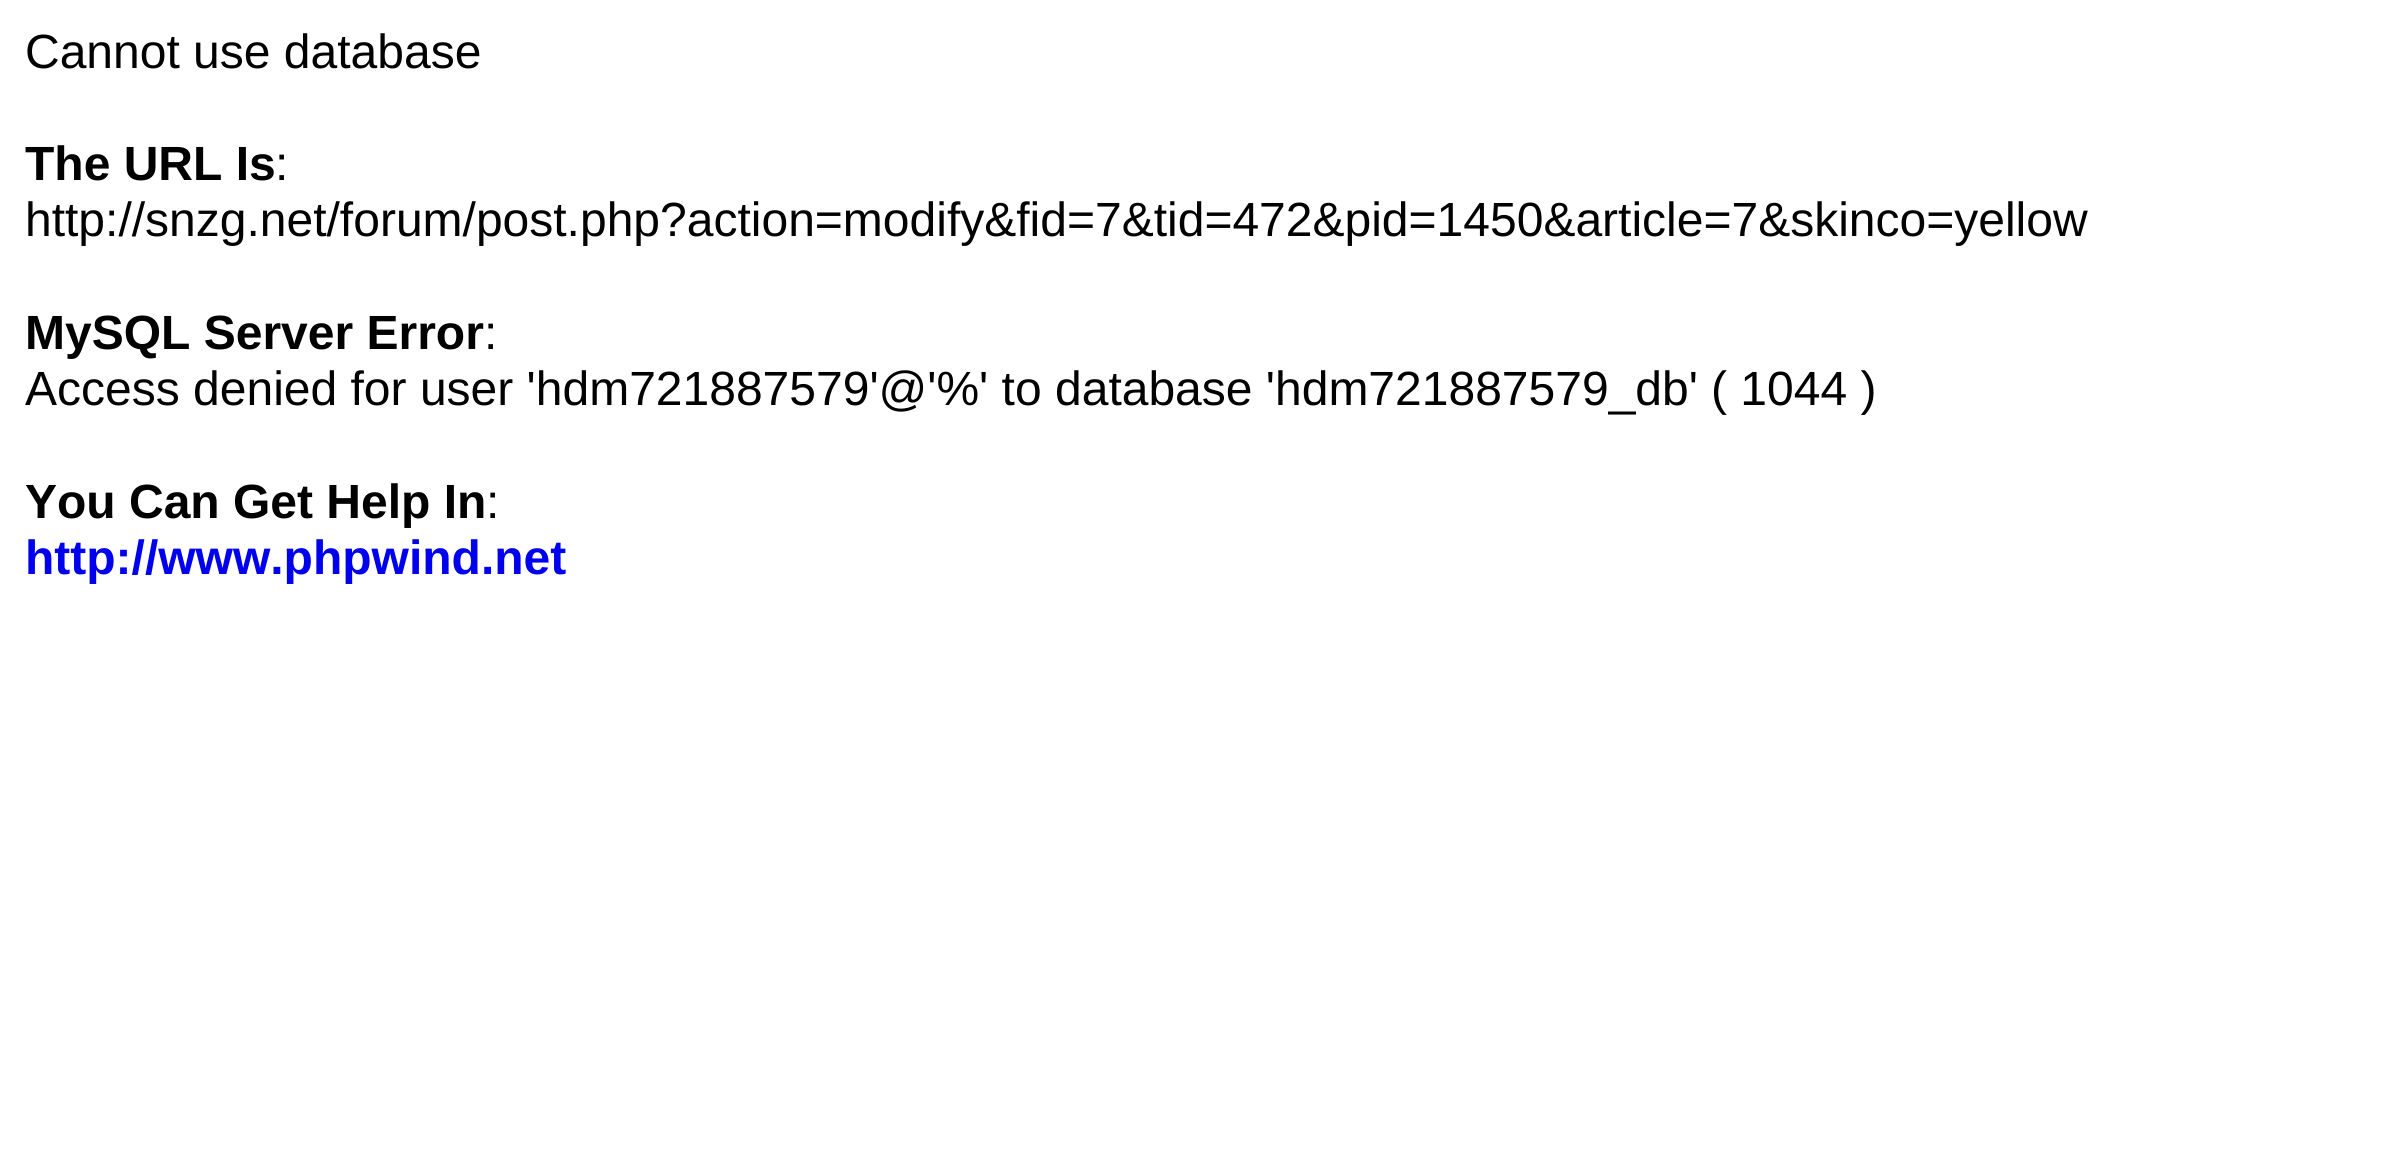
import math
import cairo

surface = cairo.ImageSurface(cairo.FORMAT_RGB24, 2383, 1165)
ctx = cairo.Context(surface)
options = cairo.FontOptions()
options.set_hint_metrics(cairo.HINT_METRICS_OFF)
options.set_hint_style(cairo.HINT_STYLE_NONE)
ctx.set_font_options(options)
ctx.set_miter_limit(4)


def set_color(code):
    ctx.set_source_rgb(*(v / 255 for v in bytes.fromhex(code[-6:])))


def draw_text(x, y, s, family, size, color, bold=False, italic=False):
    ctx.select_font_face(family, cairo.FONT_SLANT_ITALIC if italic else cairo.FONT_SLANT_NORMAL, cairo.FONT_WEIGHT_BOLD if bold else cairo.FONT_WEIGHT_NORMAL)
    ctx.set_font_size(size)
    set_color(color)
    ctx.move_to(x, y)
    ctx.show_text(s)


set_color("#ffffff")
ctx.paint()
draw_text(25, 68, "Cannot use database", "Liberation Sans", 48, "#000000")
draw_text(25, 180, "The URL Is", "Liberation Sans", 48, "#000000", bold=True)
draw_text(275, 180, ":", "Liberation Sans", 48, "#000000")
draw_text(25, 236, "http://snzg.net/forum/post.php?action=modify&fid=7&tid=472&pid=1450&article=7&skinco=yellow", "Liberation Sans", 48, "#000000")
draw_text(25, 349, "MySQL Server Error", "Liberation Sans", 48, "#000000", bold=True)
draw_text(484, 349, ":", "Liberation Sans", 48, "#000000")
draw_text(25, 405, "Access denied for user 'hdm721887579'@'%' to database 'hdm721887579_db'", "Liberation Sans", 48, "#000000")
draw_text(1711, 405, "( 1044 )", "Liberation Sans", 48, "#000000")
draw_text(25, 518, "You Can Get Help In", "Liberation Sans", 48, "#000000", bold=True)
draw_text(486, 518, ":", "Liberation Sans", 48, "#000000")
draw_text(25, 574, "http://www.phpwind.net", "Liberation Sans", 48, "#0000ee", bold=True)
surface.write_to_png("output.png")
